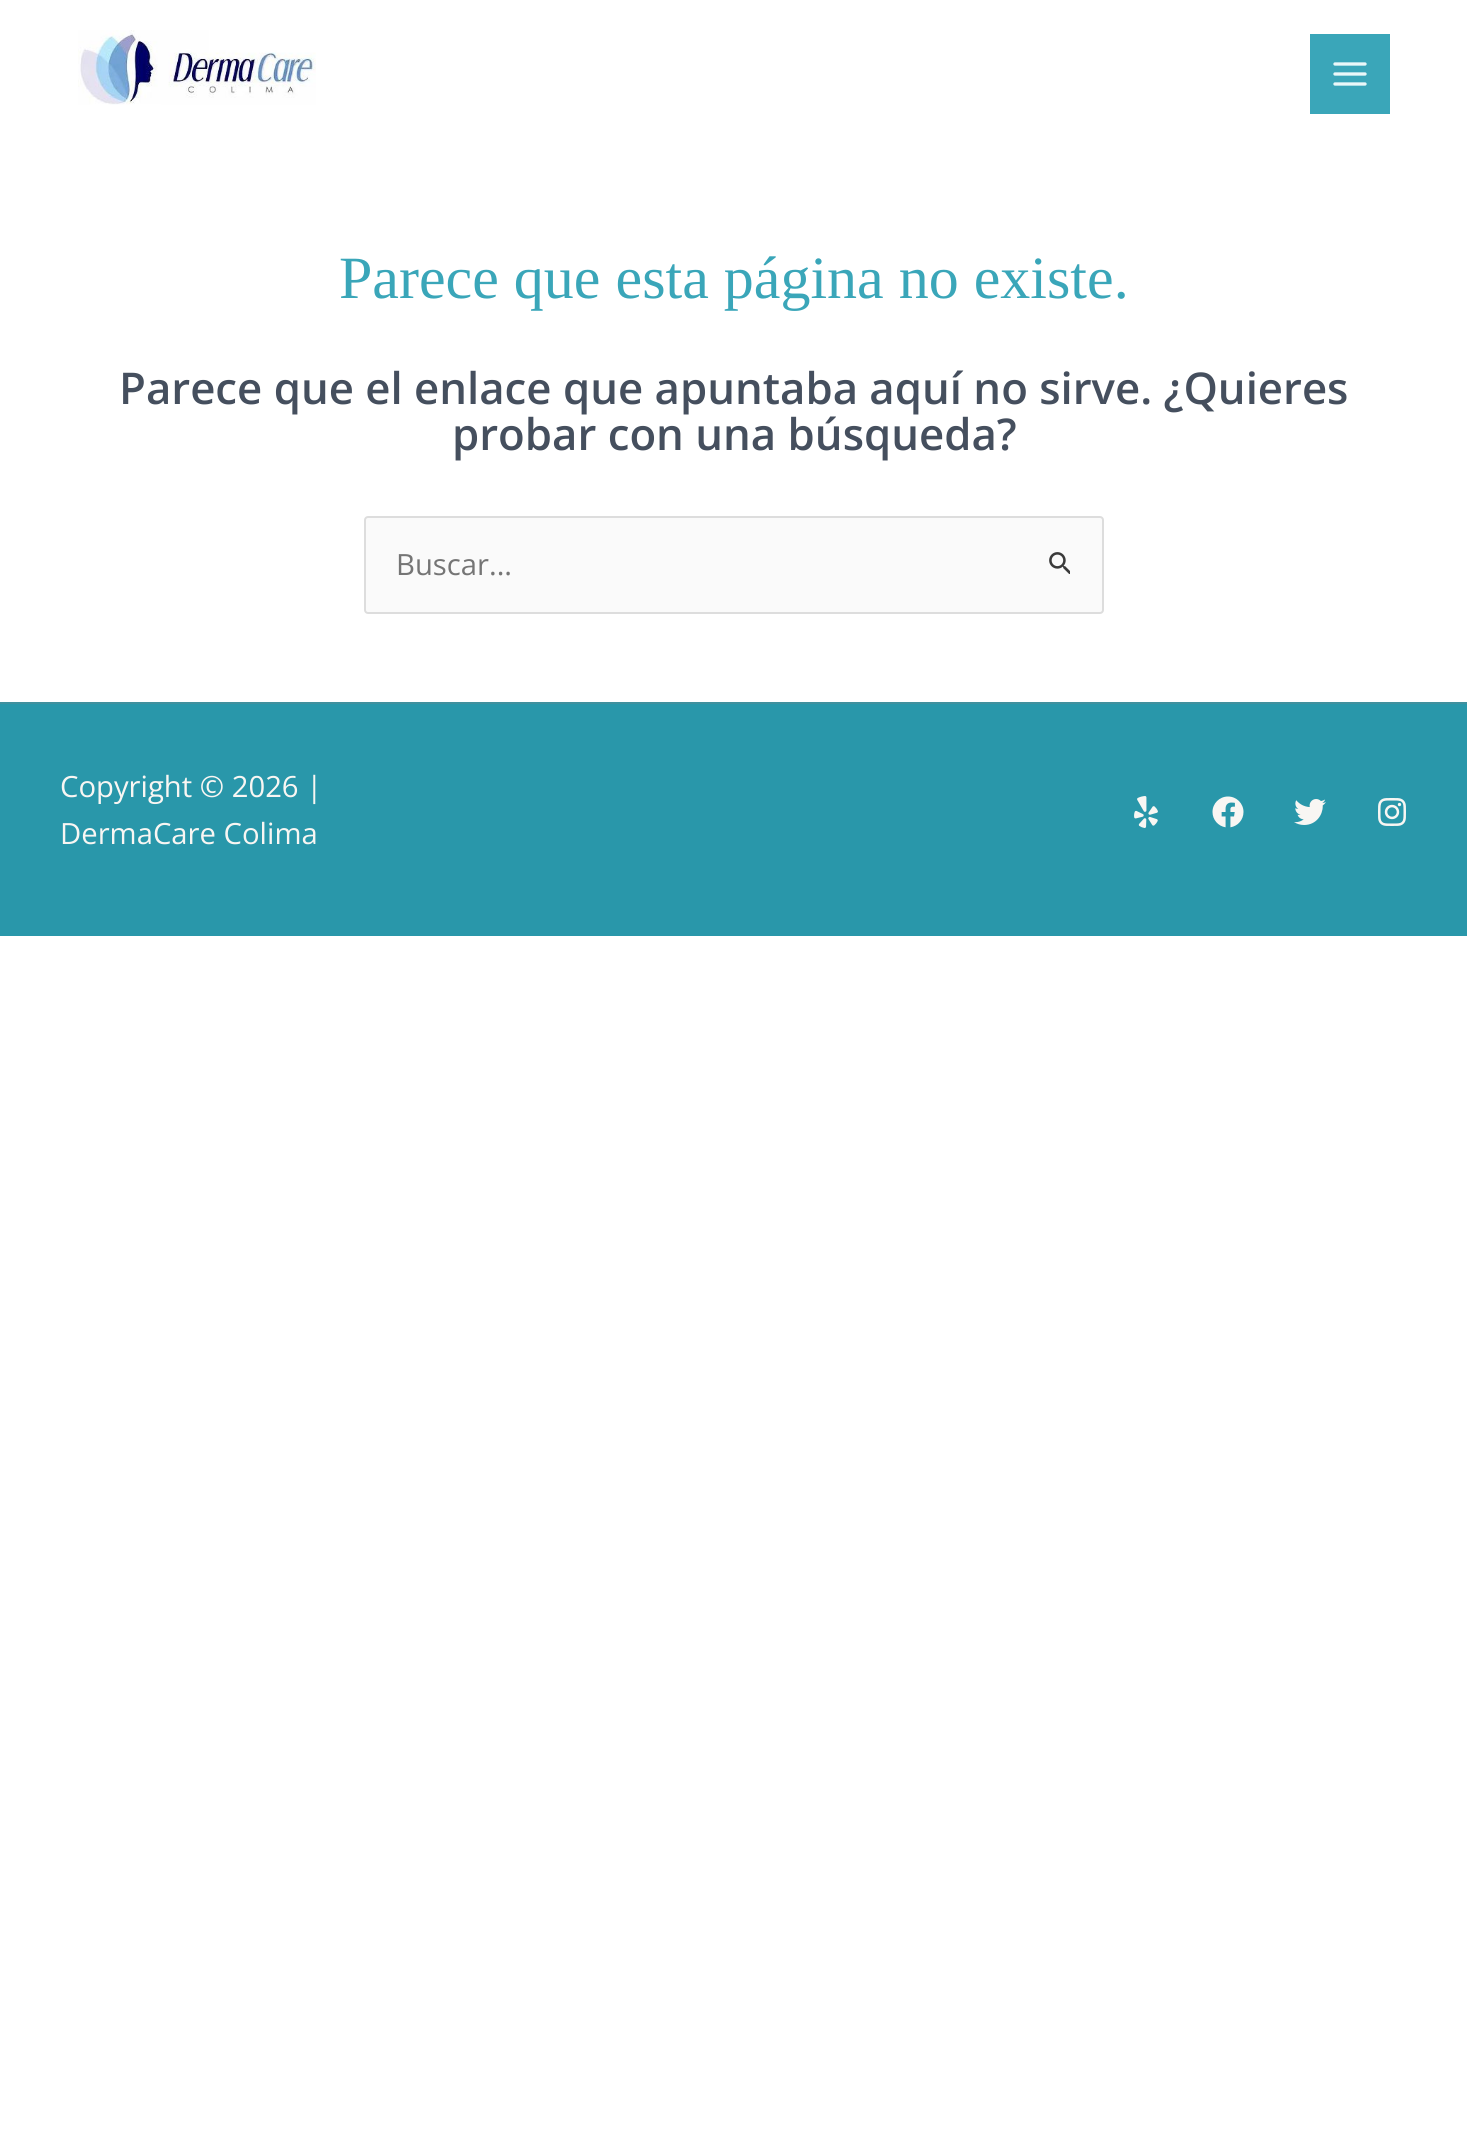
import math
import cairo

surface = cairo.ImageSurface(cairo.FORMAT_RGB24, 1467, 2152)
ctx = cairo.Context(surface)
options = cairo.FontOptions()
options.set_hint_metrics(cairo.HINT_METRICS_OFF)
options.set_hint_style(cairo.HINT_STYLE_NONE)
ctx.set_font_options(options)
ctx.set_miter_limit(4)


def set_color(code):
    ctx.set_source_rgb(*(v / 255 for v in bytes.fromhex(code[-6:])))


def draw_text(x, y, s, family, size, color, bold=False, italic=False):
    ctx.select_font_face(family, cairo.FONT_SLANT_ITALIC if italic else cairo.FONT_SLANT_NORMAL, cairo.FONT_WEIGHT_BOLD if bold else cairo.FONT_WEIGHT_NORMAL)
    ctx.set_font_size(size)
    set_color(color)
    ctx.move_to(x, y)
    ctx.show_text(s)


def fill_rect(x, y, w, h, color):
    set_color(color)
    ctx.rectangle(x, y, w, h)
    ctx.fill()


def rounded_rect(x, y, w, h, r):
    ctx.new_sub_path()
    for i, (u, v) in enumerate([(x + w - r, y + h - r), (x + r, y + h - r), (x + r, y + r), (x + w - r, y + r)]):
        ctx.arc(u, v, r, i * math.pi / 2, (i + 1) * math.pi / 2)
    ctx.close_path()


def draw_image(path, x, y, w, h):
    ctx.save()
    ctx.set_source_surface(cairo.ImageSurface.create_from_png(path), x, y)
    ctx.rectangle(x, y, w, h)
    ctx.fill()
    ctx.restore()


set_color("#ffffff")
ctx.paint()
draw_image("assets/img1.png", 78, 30, 238, 75)
fill_rect(1310, 34, 80, 80, "#3aa6b9")
draw_image("assets/img2.png", 1333, 62, 34, 24)
draw_text(339, 298, "Parece que esta página no existe.", "Liberation Serif", 60, "#3aa6b9")
draw_text(119, 404, "Parece que el enlace que apuntaba aquí no sirve. ¿Quieres", "Open Sans SemiBold", 43.75, "#454f5e")
draw_text(452, 450, "probar con una búsqueda?", "Open Sans SemiBold", 43.75, "#454f5e")
set_color("#fafafa")
rounded_rect(365, 517, 738, 96, 3)
ctx.fill_preserve()
set_color("#dddddd")
ctx.stroke()
draw_text(396, 575, "Buscar...", "Open Sans", 29.25, "#757575")
draw_image("assets/img3.png", 1049, 552, 21, 22)
fill_rect(0, 704, 1467, 232, "#2997aa")
fill_rect(0, 702, 1467, 2, "#40909e")
draw_text(60, 797, "Copyright © 2026 |", "Open Sans", 29.25, "#f8f6f3")
draw_text(60, 844, "DermaCare Colima", "Open Sans", 29.25, "#f8f6f3")
draw_image("assets/img4.png", 1134, 796, 24, 32)
draw_image("assets/img5.png", 1212, 796, 32, 32)
draw_image("assets/img6.png", 1294, 799, 32, 26)
draw_image("assets/img7.png", 1378, 798, 28, 28)
surface.write_to_png("output.png")
